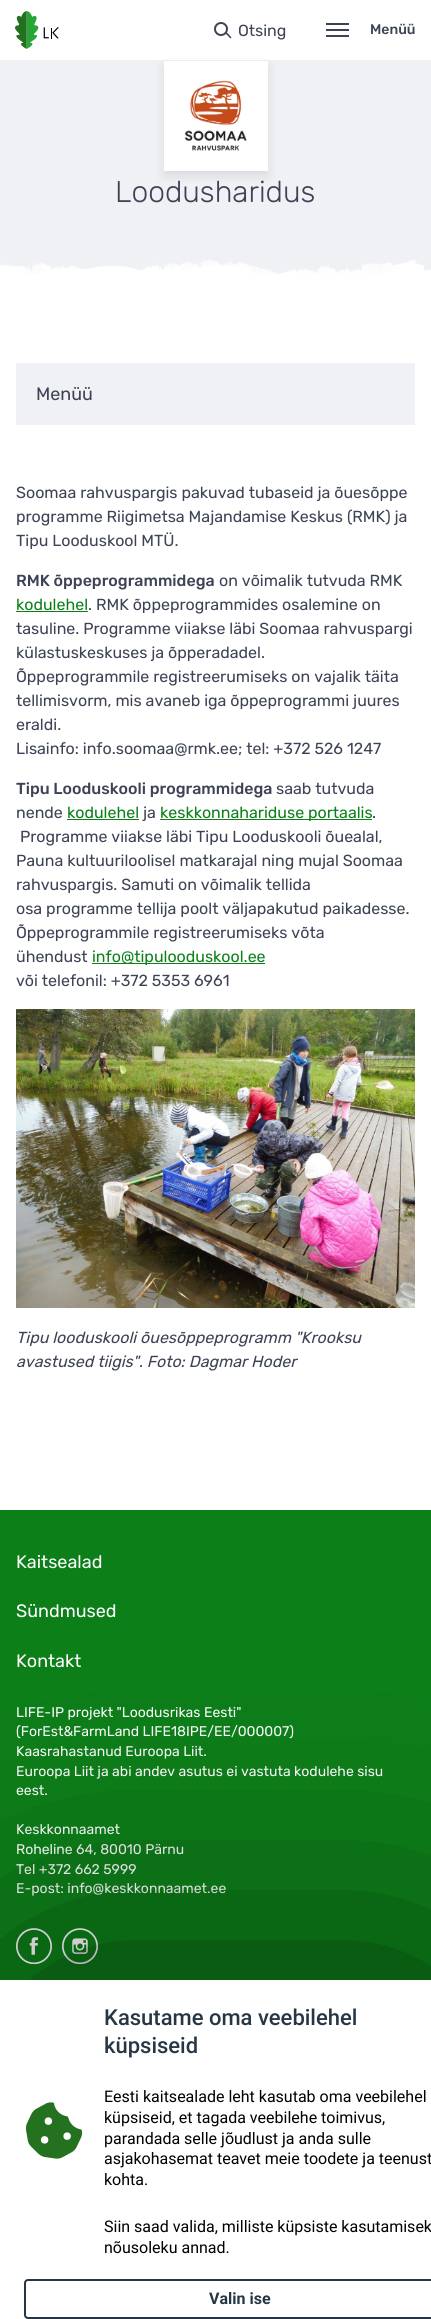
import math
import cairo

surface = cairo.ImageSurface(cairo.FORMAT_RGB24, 431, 2319)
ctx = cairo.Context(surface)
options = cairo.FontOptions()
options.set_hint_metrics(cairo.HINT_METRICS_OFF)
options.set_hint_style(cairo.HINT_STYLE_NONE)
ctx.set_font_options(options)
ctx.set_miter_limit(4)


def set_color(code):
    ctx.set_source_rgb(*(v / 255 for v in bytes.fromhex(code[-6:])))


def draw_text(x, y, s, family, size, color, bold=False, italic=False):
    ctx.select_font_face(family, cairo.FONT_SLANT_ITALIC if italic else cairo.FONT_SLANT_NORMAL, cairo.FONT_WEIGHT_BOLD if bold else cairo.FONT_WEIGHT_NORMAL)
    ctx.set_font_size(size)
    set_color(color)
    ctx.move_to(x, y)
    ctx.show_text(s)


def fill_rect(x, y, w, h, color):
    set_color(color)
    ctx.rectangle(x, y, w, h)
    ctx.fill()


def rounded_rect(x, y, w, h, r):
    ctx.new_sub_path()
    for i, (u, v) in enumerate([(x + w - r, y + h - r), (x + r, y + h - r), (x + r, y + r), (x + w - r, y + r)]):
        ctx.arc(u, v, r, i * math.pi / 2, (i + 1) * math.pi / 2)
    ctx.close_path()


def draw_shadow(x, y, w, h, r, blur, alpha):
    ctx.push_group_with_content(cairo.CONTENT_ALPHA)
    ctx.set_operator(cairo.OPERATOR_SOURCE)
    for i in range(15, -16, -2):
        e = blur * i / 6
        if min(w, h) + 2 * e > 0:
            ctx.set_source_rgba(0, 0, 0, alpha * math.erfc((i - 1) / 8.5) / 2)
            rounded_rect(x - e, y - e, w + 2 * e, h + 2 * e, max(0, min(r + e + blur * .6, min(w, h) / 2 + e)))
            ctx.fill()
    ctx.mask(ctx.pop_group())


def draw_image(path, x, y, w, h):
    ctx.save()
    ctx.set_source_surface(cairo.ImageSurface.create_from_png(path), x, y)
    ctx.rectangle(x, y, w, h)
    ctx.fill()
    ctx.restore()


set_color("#ffffff")
ctx.paint()
fill_rect(0, 60, 431, 230, "#f0f1f5")
draw_image("assets/img1.png", 15, 11, 44, 38)
ctx.arc(221, 29, 6, 0, 2 * math.pi)
set_color("#3d4355")
ctx.stroke()
ctx.new_path()
ctx.move_to(227, 32.5)
ctx.line_to(231.5, 37.5)
ctx.line_to(230.5, 38.5)
ctx.line_to(225.5, 33.5)
ctx.close_path()
ctx.fill()
draw_text(238, 36, "Otsing", "Rubik", 16, "#3d4355")
fill_rect(326, 29, 23, 2, "#3d4355")
fill_rect(326, 23, 23, 2, "#3d4355")
fill_rect(326, 35, 23, 2, "#3d4355")
draw_text(370, 34, "Menüü", "Rubik Medium", 14, "#3d4355")
draw_image("assets/img2.png", 0, 257, 431, 46)
set_color("#000000")
draw_shadow(164, 66, 104, 110, 0, 5, 0.1)
fill_rect(164, 61, 104, 110, "#ffffff")
draw_image("assets/img3.png", 184, 80, 63, 71)
draw_text(115, 202, "Loodusharidus", "Rubik Light", 30, "#3d4355")
fill_rect(16, 363, 399, 62, "#f0f1f5")
draw_text(36, 400, "Menüü", "Rubik", 18, "#3d4355")
draw_text(16, 498, "Soomaa rahvuspargis pakuvad tubaseid ja õuesõppe", "Rubik", 16, "#3d4355")
draw_text(16, 522, "programme Riigimetsa Majandamise Keskus (RMK) ja", "Rubik", 16, "#3d4355")
draw_text(16, 546, "Tipu Looduskool MTÜ.", "Rubik", 16, "#3d4355")
draw_text(16, 586, "RMK õppeprogrammidega", "Rubik Medium", 16, "#3d4355")
draw_text(219, 586, "on võimalik tutvuda RMK", "Rubik", 16, "#3d4355")
draw_text(16, 610, "kodulehel", "Rubik", 16, "#0c7f19")
fill_rect(16, 611, 72, 1, "#0c7f19")
draw_text(88, 610, ". RMK õppeprogrammides osalemine on", "Rubik", 16, "#3d4355")
draw_text(16, 634, "tasuline. Programme viiakse läbi Soomaa rahvuspargi", "Rubik", 16, "#3d4355")
draw_text(16, 658, "külastuskeskuses ja õpperadadel.", "Rubik", 16, "#3d4355")
draw_text(16, 682, "Õppeprogrammile registreerumiseks on vajalik täita", "Rubik", 16, "#3d4355")
draw_text(16, 706, "tellimisvorm, mis avaneb iga õppeprogrammi juures", "Rubik", 16, "#3d4355")
draw_text(16, 730, "eraldi.", "Rubik", 16, "#3d4355")
draw_text(16, 754, "Lisainfo: info.soomaa@rmk.ee; tel: +372 526 1247", "Rubik", 16, "#3d4355")
draw_text(16, 794, "Tipu Looduskooli programmidega", "Rubik Medium", 16, "#3d4355")
draw_text(276, 794, "saab tutvuda", "Rubik", 16, "#3d4355")
draw_text(16, 818, "nende", "Rubik", 16, "#3d4355")
draw_text(67, 818, "kodulehel", "Rubik", 16, "#0c7f19")
fill_rect(67, 819, 72, 1, "#0c7f19")
draw_text(143, 818, "ja", "Rubik", 16, "#3d4355")
fill_rect(160, 819, 212, 1, "#0c7f19")
draw_text(160, 818, "keskkonnahariduse portaalis", "Rubik", 16, "#0c7f19")
draw_text(372, 818, ".", "Rubik", 16, "#3d4355")
draw_text(20, 842, "Programme viiakse läbi Tipu Looduskooli õuealal,", "Rubik", 16, "#3d4355")
draw_text(16, 866, "Pauna kultuuriloolisel matkarajal ning mujal Soomaa", "Rubik", 16, "#3d4355")
draw_text(16, 890, "rahvuspargis. Samuti on võimalik tellida", "Rubik", 16, "#3d4355")
draw_text(16, 914, "osa programme tellija poolt väljapakutud paikadesse.", "Rubik", 16, "#3d4355")
draw_text(16, 938, "Õppeprogrammile registreerumiseks võta", "Rubik", 16, "#3d4355")
draw_text(16, 962, "ühendust", "Rubik", 16, "#3d4355")
fill_rect(92, 963, 173, 1, "#0c7f19")
draw_text(92, 962, "info@tipulooduskool.ee", "Rubik", 16, "#0c7f19")
draw_text(16, 986, "või telefonil: +372 5353 6961", "Rubik", 16, "#3d4355")
draw_image("assets/img4.png", 16, 1009, 399, 299)
draw_text(16, 1343, "Tipu looduskooli õuesõppeprogramm \"Krooksu", "Rubik", 16, "#3d4355", italic=True)
draw_text(16, 1367, "avastused tiigis\". Foto: Dagmar Hoder", "Rubik", 16, "#3d4355", italic=True)
fill_rect(0, 1510, 431, 470, "#0c7f19")
draw_text(16, 1568, "Kaitsealad", "Rubik", 18, "#ffffff")
draw_text(16, 1617, "Sündmused", "Rubik", 18, "#ffffff")
draw_text(16, 1667, "Kontakt", "Rubik", 18, "#ffffff")
draw_text(16, 1717, "LIFE-IP projekt \"Loodusrikas Eesti\"", "Rubik", 14, "#ffffff")
draw_text(16, 1736, "(ForEst&FarmLand LIFE18IPE/EE/000007)", "Rubik", 14, "#ffffff")
draw_text(16, 1756, "Kaasrahastanud Euroopa Liit.", "Rubik", 14, "#ffffff")
draw_text(16, 1776, "Euroopa Liit ja abi andev asutus ei vastuta kodulehe sisu", "Rubik", 14, "#ffffff")
draw_text(16, 1795, "eest.", "Rubik", 14, "#ffffff")
draw_text(16, 1834, "Keskkonnaamet", "Rubik", 14, "#ffffff")
draw_text(16, 1854, "Roheline 64, 80010 Pärnu", "Rubik", 14, "#ffffff")
draw_text(16, 1874, "Tel +372 662 5999", "Rubik", 14, "#ffffff")
draw_text(16, 1893, "E-post: info@keskkonnaamet.ee", "Rubik", 14, "#ffffff")
draw_image("assets/img5.png", 16, 1928, 36, 36)
draw_image("assets/img6.png", 62, 1928, 36, 36)
set_color("#000000")
draw_shadow(47, 2015, 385, 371, 0, 150, 0.75)
fill_rect(0, 1980, 431, 339, "#ffffff")
draw_image("assets/img7.png", 25, 2102, 58, 57)
draw_text(104, 2025, "Kasutame oma veebilehel", "Roboto Medium", 22, "#273645")
draw_text(104, 2053, "küpsiseid", "Roboto Medium", 22, "#273645")
draw_text(104, 2102, "Eesti kaitsealade leht kasutab oma veebilehel", "Roboto", 16, "#000000")
draw_text(104, 2123, "küpsiseid, et tagada veebilehe toimivus,", "Roboto", 16, "#000000")
draw_text(104, 2144, "parandada selle jõudlust ja anda sulle", "Roboto", 16, "#000000")
draw_text(104, 2164, "asjakohasemat teavet meie toodete ja teenust", "Roboto", 16, "#000000")
draw_text(104, 2185, "kohta.", "Roboto", 16, "#000000")
draw_text(104, 2232, "Siin saad valida, milliste küpsiste kasutamisek", "Roboto", 16, "#000000")
draw_text(104, 2253, "nõusoleku annad.", "Roboto", 16, "#000000")
rounded_rect(25, 2280, 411, 38, 3)
set_color("#273645")
ctx.stroke()
draw_text(209, 2304, "Valin ise", "Roboto", 16, "#273645", bold=True)
surface.write_to_png("output.png")
